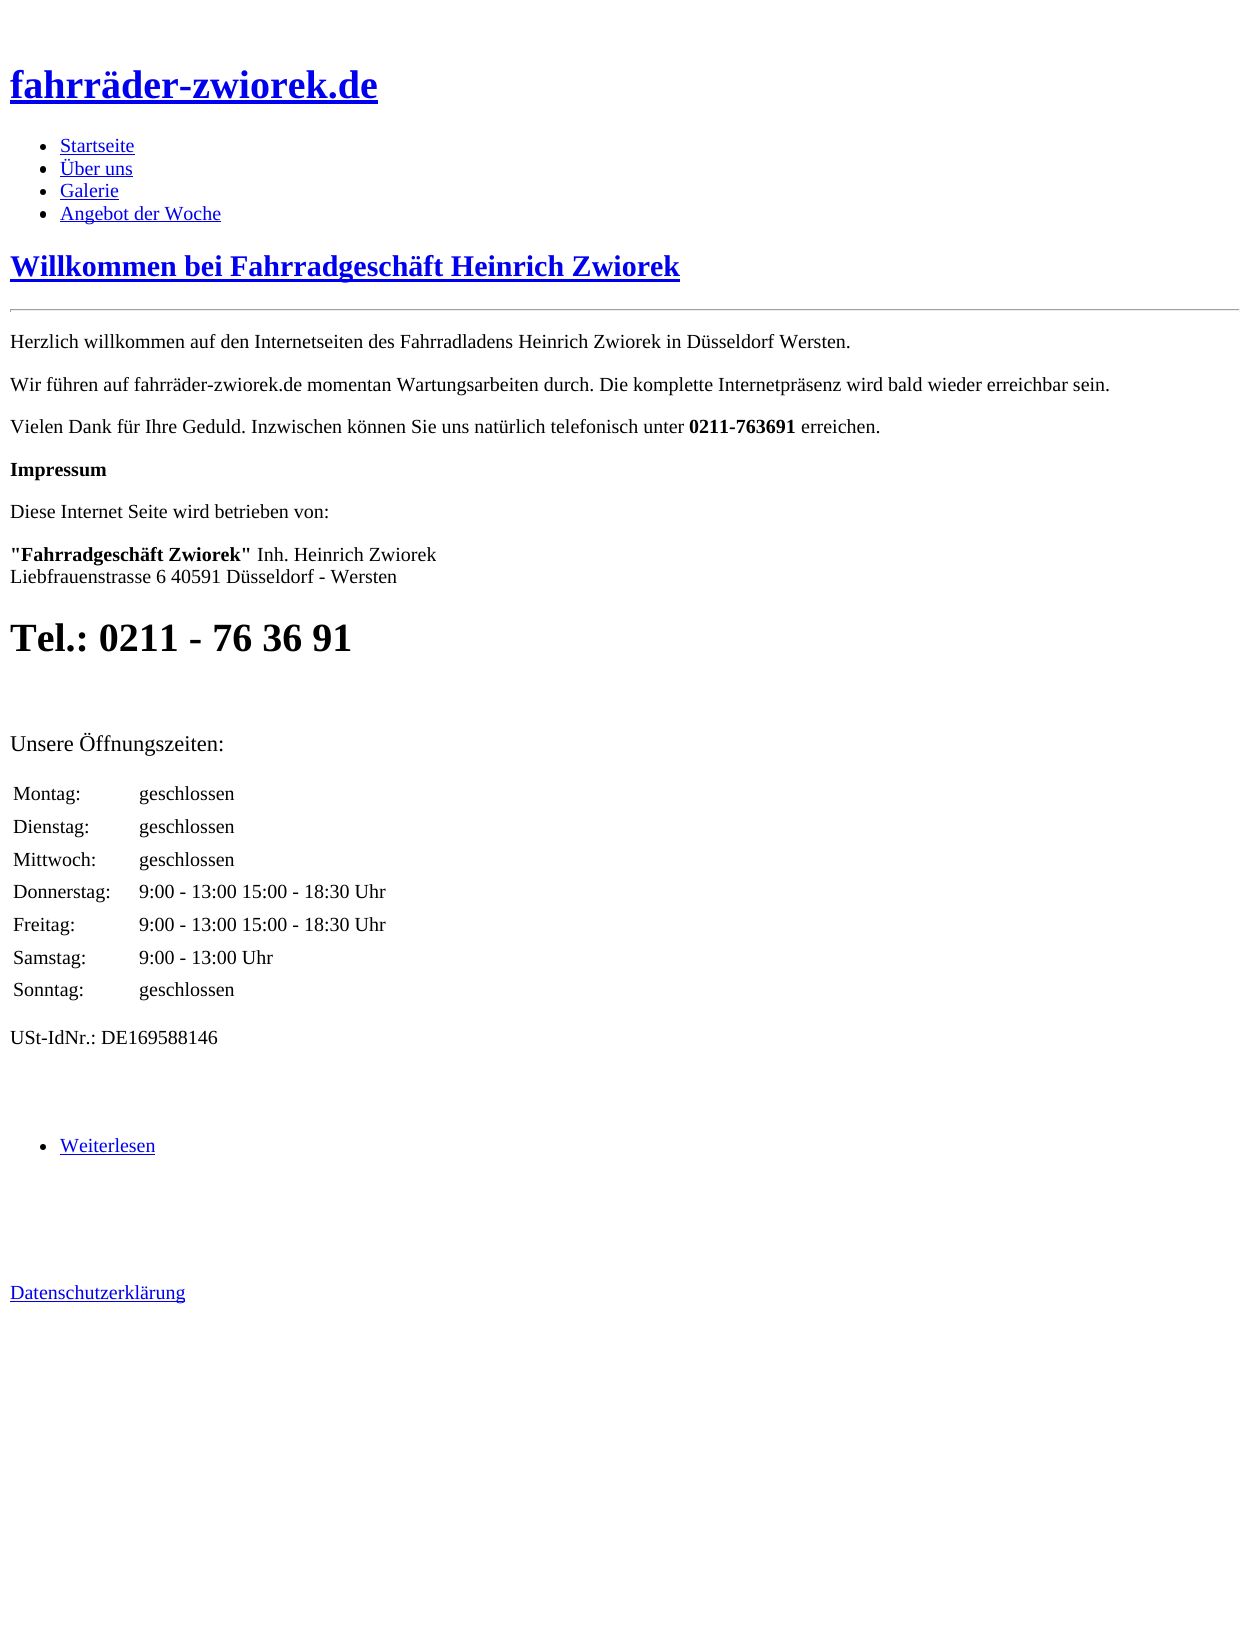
import math
import cairo

surface = cairo.ImageSurface(cairo.FORMAT_RGB24, 1250, 1652)
ctx = cairo.Context(surface)
options = cairo.FontOptions()
options.set_hint_metrics(cairo.HINT_METRICS_OFF)
options.set_hint_style(cairo.HINT_STYLE_NONE)
ctx.set_font_options(options)
ctx.set_miter_limit(4)


def set_color(code):
    ctx.set_source_rgb(*(v / 255 for v in bytes.fromhex(code[-6:])))


def draw_text(x, y, s, family, size, color, bold=False, italic=False):
    ctx.select_font_face(family, cairo.FONT_SLANT_ITALIC if italic else cairo.FONT_SLANT_NORMAL, cairo.FONT_WEIGHT_BOLD if bold else cairo.FONT_WEIGHT_NORMAL)
    ctx.set_font_size(size)
    set_color(color)
    ctx.move_to(x, y)
    ctx.show_text(s)


def fill_rect(x, y, w, h, color):
    set_color(color)
    ctx.rectangle(x, y, w, h)
    ctx.fill()


def rounded_rect(x, y, w, h, r):
    ctx.new_sub_path()
    for i, (u, v) in enumerate([(x + w - r, y + h - r), (x + r, y + h - r), (x + r, y + r), (x + w - r, y + r)]):
        ctx.arc(u, v, r, i * math.pi / 2, (i + 1) * math.pi / 2)
    ctx.close_path()


set_color("#ffffff")
ctx.paint()
draw_text(10, 98, "fahrräder-zwiorek.de", "Liberation Serif", 40, "#0000ee", bold=True)
fill_rect(10, 100, 368, 4, "#0000ee")
set_color("#000000")
ctx.new_path()
ctx.arc(43, 147, 3, 0, 2 * math.pi)
ctx.fill()
draw_text(60, 152, "Startseite", "Liberation Serif", 20, "#0000ee")
fill_rect(60, 154, 75, 1, "#0000ee")
set_color("#000000")
rounded_rect(40, 166, 6, 7, 3)
ctx.fill()
draw_text(60, 175, "Über uns", "Liberation Serif", 20, "#0000ee")
fill_rect(60, 176, 73, 1, "#0000ee")
set_color("#000000")
ctx.new_path()
ctx.arc(43, 192, 3, 0, 2 * math.pi)
ctx.fill()
draw_text(60, 197, "Galerie", "Liberation Serif", 20, "#0000ee")
fill_rect(60, 199, 59, 1, "#0000ee")
set_color("#000000")
rounded_rect(40, 211, 6, 7, 3)
ctx.fill()
fill_rect(60, 221, 161, 1, "#0000ee")
draw_text(60, 220, "Angebot der Woche", "Liberation Serif", 20, "#0000ee")
fill_rect(10, 279, 670, 3, "#0000ee")
draw_text(10, 276, "Willkommen bei Fahrradgeschäft Heinrich Zwiorek", "Liberation Serif", 30, "#0000ee", bold=True)
fill_rect(10, 309, 1230, 1, "#9f9f9f")
fill_rect(1239, 309, 1, 3, "#eeeeee")
fill_rect(10, 310, 1230, 1, "#eeeeee")
fill_rect(10, 309, 1, 3, "#9f9f9f")
draw_text(10, 348, "Herzlich willkommen auf den Internetseiten des Fahrradladens Heinrich Zwiorek in Düsseldorf Wersten.", "Liberation Serif", 20, "#000000")
draw_text(10, 391, "Wir führen auf fahrräder-zwiorek.de momentan Wartungsarbeiten durch. Die komplette Internetpräsenz wird bald wieder erreichbar sein.", "Liberation Serif", 20, "#000000")
draw_text(10, 433, "Vielen Dank für Ihre Geduld. Inzwischen können Sie uns natürlich telefonisch unter", "Liberation Serif", 20, "#000000")
draw_text(689, 433, "0211-763691", "Liberation Serif", 20, "#000000", bold=True)
draw_text(801, 433, "erreichen.", "Liberation Serif", 20, "#000000")
draw_text(10, 476, "Impressum", "Liberation Serif", 20, "#000000", bold=True)
draw_text(10, 518, "Diese Internet Seite wird betrieben von:", "Liberation Serif", 20, "#000000")
draw_text(10, 561, "\"Fahrradgeschäft Zwiorek\"", "Liberation Serif", 20, "#000000", bold=True)
draw_text(257, 561, "Inh. Heinrich Zwiorek", "Liberation Serif", 20, "#000000")
draw_text(10, 583, "Liebfrauenstrasse 6 40591 Düsseldorf - Wersten", "Liberation Serif", 20, "#000000")
draw_text(10, 651, "Tel.: 0211 - 76 36 91", "Liberation Serif", 40, "#000000", bold=True)
draw_text(10, 751, "Unsere Öffnungszeiten:", "Liberation Serif", 22.5, "#000000")
draw_text(13, 800, "Montag:", "Liberation Serif", 20, "#000000")
draw_text(139, 800, "geschlossen", "Liberation Serif", 20, "#000000")
draw_text(13, 833, "Dienstag:", "Liberation Serif", 20, "#000000")
draw_text(139, 833, "geschlossen", "Liberation Serif", 20, "#000000")
draw_text(13, 866, "Mittwoch:", "Liberation Serif", 20, "#000000")
draw_text(139, 866, "geschlossen", "Liberation Serif", 20, "#000000")
draw_text(13, 898, "Donnerstag:", "Liberation Serif", 20, "#000000")
draw_text(139, 898, "9:00 - 13:00 15:00 - 18:30 Uhr", "Liberation Serif", 20, "#000000")
draw_text(13, 931, "Freitag:", "Liberation Serif", 20, "#000000")
draw_text(139, 931, "9:00 - 13:00 15:00 - 18:30 Uhr", "Liberation Serif", 20, "#000000")
draw_text(13, 964, "Samstag:", "Liberation Serif", 20, "#000000")
draw_text(139, 964, "9:00 - 13:00 Uhr", "Liberation Serif", 20, "#000000")
draw_text(13, 996, "Sonntag:", "Liberation Serif", 20, "#000000")
draw_text(139, 996, "geschlossen", "Liberation Serif", 20, "#000000")
draw_text(10, 1044, "USt-IdNr.: DE169588146", "Liberation Serif", 20, "#000000")
ctx.new_path()
ctx.arc(43, 1147, 3, 0, 2 * math.pi)
ctx.fill()
draw_text(60, 1152, "Weiterlesen", "Liberation Serif", 20, "#0000ee")
fill_rect(60, 1154, 95, 1, "#0000ee")
fill_rect(10, 1301, 175, 1, "#0000ee")
draw_text(10, 1299, "Datenschutzerklärung", "Liberation Serif", 20, "#0000ee")
surface.write_to_png("output.png")
